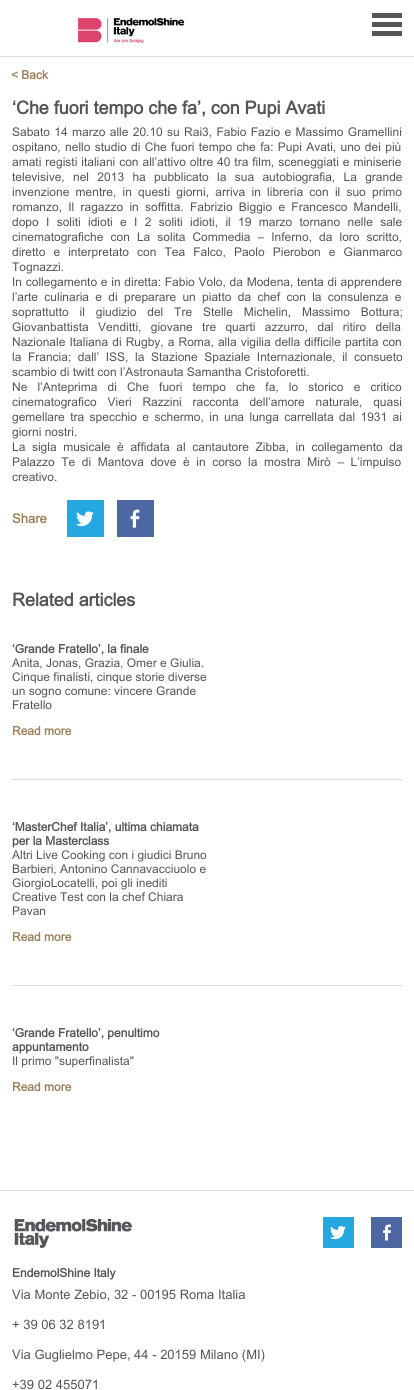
import math
import cairo

surface = cairo.ImageSurface(cairo.FORMAT_RGB24, 414, 1390)
ctx = cairo.Context(surface)
options = cairo.FontOptions()
options.set_hint_metrics(cairo.HINT_METRICS_OFF)
options.set_hint_style(cairo.HINT_STYLE_NONE)
ctx.set_font_options(options)
ctx.set_miter_limit(4)


def set_color(code):
    ctx.set_source_rgb(*(v / 255 for v in bytes.fromhex(code[-6:])))


def draw_text(x, y, s, family, size, color, bold=False, italic=False):
    ctx.select_font_face(family, cairo.FONT_SLANT_ITALIC if italic else cairo.FONT_SLANT_NORMAL, cairo.FONT_WEIGHT_BOLD if bold else cairo.FONT_WEIGHT_NORMAL)
    ctx.set_font_size(size)
    set_color(color)
    ctx.move_to(x, y)
    ctx.show_text(s)


def draw_spaced(x, y, s, letter, word):
    ctx.move_to(x, y)
    for ch in s:
        ctx.show_text(ch)
        ctx.rel_move_to(letter + word * (ch == ' '), 0)


def fill_rect(x, y, w, h, color):
    set_color(color)
    ctx.rectangle(x, y, w, h)
    ctx.fill()


def draw_image(path, x, y, w, h):
    ctx.save()
    ctx.set_source_surface(cairo.ImageSurface.create_from_png(path), x, y)
    ctx.rectangle(x, y, w, h)
    ctx.fill()
    ctx.restore()


set_color("#ffffff")
ctx.paint()
draw_image("assets/img1.png", 77, 18, 108, 25)
fill_rect(372, 13, 30, 5, "#56565a")
fill_rect(372, 22, 30, 5, "#56565a")
fill_rect(372, 31, 30, 5, "#56565a")
fill_rect(0, 56, 414, 1, "#d9dddf")
draw_text(11, 79, "< Back", "Arial", 12, "#9c815c", bold=True)
ctx.set_font_size(18)
set_color("#555559")
draw_spaced(12, 114, "‘Che fuori tempo che fa’, con Pupi Avati", -0.05, 0)
ctx.select_font_face("Arial")
ctx.set_font_size(12)
draw_spaced(12, 136, "Sabato 14 marzo alle 20.10 su Rai3, Fabio Fazio e Massimo Gramellini", 0, 1)
draw_spaced(12, 151, "ospitano, nello studio di Che fuori tempo che fa: Pupi Avati, uno dei più", 0, 1)
draw_spaced(12, 166, "amati registi italiani con all’attivo oltre 40 tra film, sceneggiati e miniserie", 0, 0.6)
draw_spaced(12, 181, "televisive, nel 2013 ha pubblicato la sua autobiografia, La grande", 0, 5)
draw_spaced(12, 196, "invenzione mentre, in questi giorni, arriva in libreria con il suo primo", 0, 2.9)
draw_spaced(12, 211, "romanzo, Il ragazzo in soffitta. Fabrizio Biggio e Francesco Mandelli,", 0, 2.9)
draw_spaced(12, 226, "dopo I soliti idioti e I 2 soliti idioti, il 19 marzo tornano nelle sale", 0, 4)
draw_spaced(12, 241, "cinematografiche con La solita Commedia – Inferno, da loro scritto,", 0, 3.75)
draw_spaced(12, 256, "diretto e interpretato con Tea Falco, Paolo Pierobon e Gianmarco", 0, 4.75)
draw_text(12, 271, "Tognazzi.", "Arial", 12, "#555559")
draw_spaced(12, 286, "In collegamento e in diretta: Fabio Volo, da Modena, tenta di apprendere", 0, 0.4)
draw_spaced(12, 301, "l’arte culinaria e di preparare un piatto da chef con la consulenza e", 0, 3)
draw_spaced(12, 316, "soprattutto il giudizio del Tre Stelle Michelin, Massimo Bottura;", 0, 7.5)
draw_spaced(12, 331, "Giovanbattista Venditti, giovane tre quarti azzurro, dal ritiro della", 0, 6)
draw_spaced(12, 346, "Nazionale Italiana di Rugby, a Roma, alla vigilia della difficile partita con", 0, 0.75)
draw_spaced(12, 361, "la Francia; dall’ ISS, la Stazione Spaziale Internazionale, il consueto", 0, 3.25)
draw_text(12, 376, "scambio di twitt con l’Astronauta Samantha Cristoforetti.", "Arial", 12, "#555559")
draw_spaced(12, 391, "Ne l’Anteprima di Che fuori tempo che fa, lo storico e critico", 0, 6.75)
draw_spaced(12, 406, "cinematografico Vieri Razzini racconta dell’amore naturale, quasi", 0, 7.5)
draw_spaced(12, 421, "gemellare tra specchio e schermo, in una lunga carrellata dal 1931 ai", 0, 2.1)
draw_text(12, 436, "giorni nostri.", "Arial", 12, "#555559")
draw_spaced(12, 451, "La sigla musicale è affidata al cantautore Zibba, in collegamento da", 0, 3.25)
draw_spaced(12, 466, "Palazzo Te di Mantova dove è in corso la mostra Mirò – L’impulso", 0, 3.25)
draw_text(12, 481, "creativo.", "Arial", 12, "#555559")
draw_text(12, 523, "Share", "Arial", 13, "#9c815c", bold=True)
fill_rect(67, 500, 37, 37, "#25a7df")
draw_image("assets/img2.png", 76, 511, 18, 16)
fill_rect(117, 500, 37, 37, "#4d67a3")
draw_image("assets/img3.png", 130, 509, 10, 19)
ctx.set_font_size(18)
set_color("#555559")
draw_spaced(12, 606, "Related articles", -0.05, 0)
fill_rect(12, 779, 390, 1, "#d9dde0")
draw_text(12, 653, "‘Grande Fratello’, la finale", "Arial", 12, "#555559", bold=True)
draw_text(12, 667, "Anita, Jonas, Grazia, Omer e Giulia.", "Arial", 12, "#555559")
draw_text(12, 681, "Cinque finalisti, cinque storie diverse", "Arial", 12, "#555559")
draw_text(12, 695, "un sogno comune: vincere Grande", "Arial", 12, "#555559")
draw_text(12, 709, "Fratello", "Arial", 12, "#555559")
draw_text(12, 735, "Read more", "Arial", 12, "#9c815c", bold=True)
fill_rect(12, 985, 390, 1, "#d9dde0")
draw_text(12, 831, "‘MasterChef Italia’, ultima chiamata", "Arial", 12, "#555559", bold=True)
draw_text(12, 845, "per la Masterclass", "Arial", 12, "#555559", bold=True)
draw_text(12, 859, "Altri Live Cooking con i giudici Bruno", "Arial", 12, "#555559")
draw_text(12, 873, "Barbieri, Antonino Cannavacciuolo e", "Arial", 12, "#555559")
draw_text(12, 887, "GiorgioLocatelli, poi gli inediti", "Arial", 12, "#555559")
draw_text(12, 901, "Creative Test con la chef Chiara", "Arial", 12, "#555559")
draw_text(12, 915, "Pavan", "Arial", 12, "#555559")
draw_text(12, 941, "Read more", "Arial", 12, "#9c815c", bold=True)
draw_text(12, 1037, "‘Grande Fratello’, penultimo", "Arial", 12, "#555559", bold=True)
draw_text(12, 1051, "appuntamento", "Arial", 12, "#555559", bold=True)
draw_text(12, 1065, "Il primo \"superfinalista\"", "Arial", 12, "#555559")
draw_text(12, 1091, "Read more", "Arial", 12, "#9c815c", bold=True)
fill_rect(0, 1190, 414, 1, "#d9dde0")
draw_image("assets/img4.png", 14, 1218, 118, 30)
fill_rect(323, 1217, 31, 31, "#25a7df")
draw_image("assets/img5.png", 330, 1226, 16, 14)
fill_rect(371, 1217, 31, 31, "#4d67a3")
draw_image("assets/img6.png", 383, 1224, 8, 17)
draw_text(12, 1277, "EndemolShine Italy", "Arial", 12, "#555559", bold=True)
draw_text(12, 1299, "Via Monte Zebio, 32 - 00195 Roma Italia", "Arial", 13, "#555559")
draw_text(12, 1329, "+ 39 06 32 8191", "Arial", 13, "#555559")
draw_text(12, 1359, "Via Guglielmo Pepe, 44 - 20159 Milano (MI)", "Arial", 13, "#555559")
draw_text(12, 1389, "+39 02 455071", "Arial", 13, "#555559")
surface.write_to_png("output.png")
